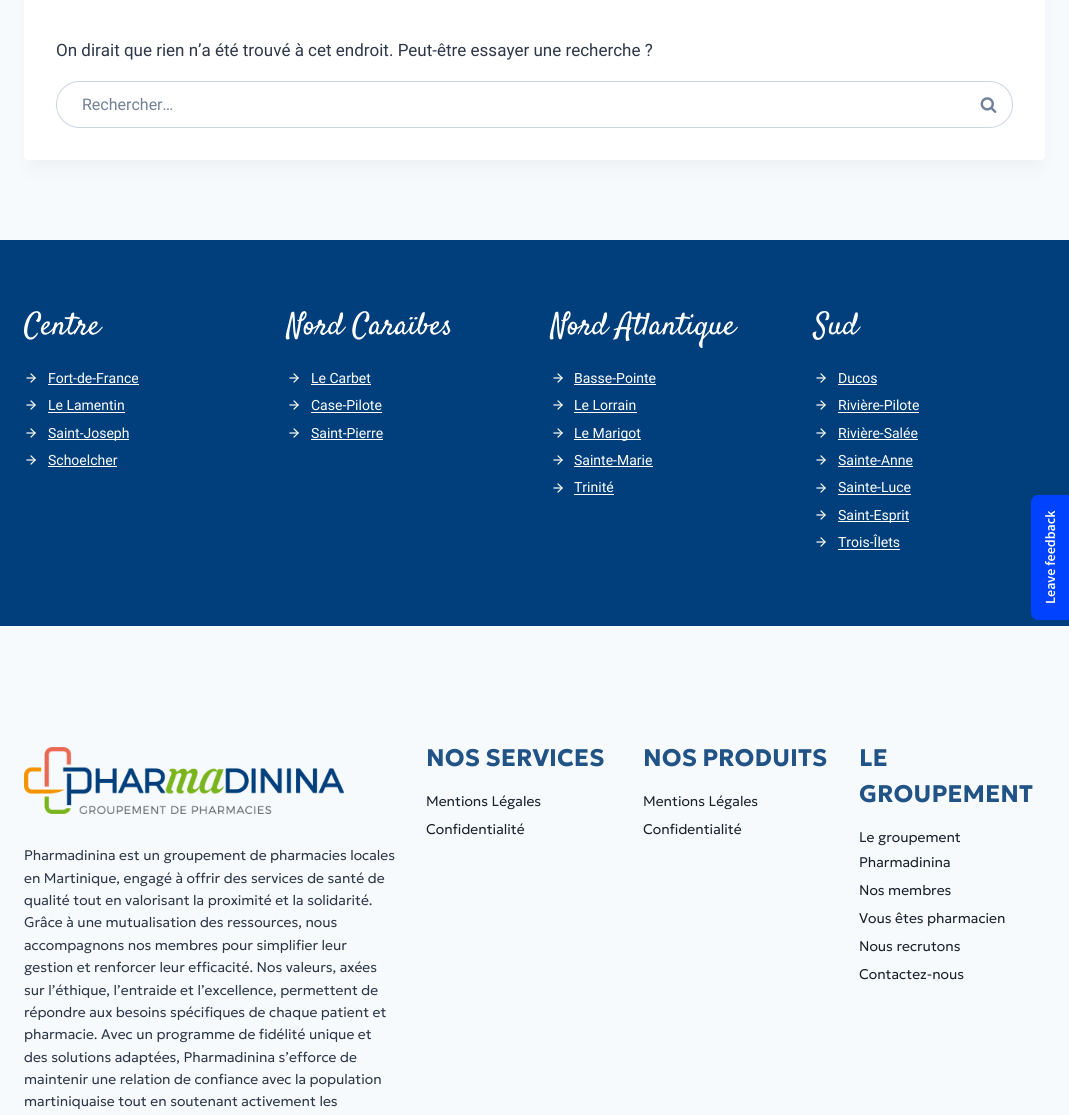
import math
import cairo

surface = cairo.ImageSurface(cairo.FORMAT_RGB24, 1069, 1115)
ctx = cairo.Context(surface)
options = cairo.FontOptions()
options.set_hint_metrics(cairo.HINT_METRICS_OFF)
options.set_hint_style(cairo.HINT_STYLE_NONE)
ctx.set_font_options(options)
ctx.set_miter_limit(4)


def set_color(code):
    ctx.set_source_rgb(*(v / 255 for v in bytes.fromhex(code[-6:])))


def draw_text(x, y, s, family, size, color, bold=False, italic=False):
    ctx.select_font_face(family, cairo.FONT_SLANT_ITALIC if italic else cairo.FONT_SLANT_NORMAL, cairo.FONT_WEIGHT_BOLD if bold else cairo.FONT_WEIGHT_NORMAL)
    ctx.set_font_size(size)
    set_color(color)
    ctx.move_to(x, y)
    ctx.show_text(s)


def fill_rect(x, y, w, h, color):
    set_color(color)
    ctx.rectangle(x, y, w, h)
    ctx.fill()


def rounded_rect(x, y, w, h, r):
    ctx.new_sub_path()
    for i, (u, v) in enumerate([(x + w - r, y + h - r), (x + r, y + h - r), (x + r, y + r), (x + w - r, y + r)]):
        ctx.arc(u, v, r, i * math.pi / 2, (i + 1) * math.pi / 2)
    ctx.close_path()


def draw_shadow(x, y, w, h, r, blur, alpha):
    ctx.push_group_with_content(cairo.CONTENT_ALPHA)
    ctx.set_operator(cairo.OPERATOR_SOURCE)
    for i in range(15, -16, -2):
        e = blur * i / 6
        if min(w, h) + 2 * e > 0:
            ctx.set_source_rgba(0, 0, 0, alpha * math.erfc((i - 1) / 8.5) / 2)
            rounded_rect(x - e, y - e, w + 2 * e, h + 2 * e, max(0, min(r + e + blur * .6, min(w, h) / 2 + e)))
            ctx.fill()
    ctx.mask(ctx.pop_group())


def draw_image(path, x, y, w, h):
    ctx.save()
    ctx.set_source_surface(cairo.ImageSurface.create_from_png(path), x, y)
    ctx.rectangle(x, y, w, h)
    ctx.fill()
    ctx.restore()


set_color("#f7fafc")
ctx.paint()
set_color("#000000")
draw_shadow(34, -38, 1001, 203, 0, 12.5, 0.05)
set_color("#ffffff")
rounded_rect(24, -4, 1021, 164, 4)
ctx.fill()
draw_text(56, 56, "On dirait que rien n’a été trouvé à cet endroit. Peut-être essayer une recherche ?", "Roboto", 17, "#2d3748")
rounded_rect(56.5, 81.5, 956, 46, 23)
set_color("#cbd5e0")
ctx.set_line_width(1)
ctx.stroke()
draw_text(82, 110, "Rechercher…", "Roboto", 16, "#718096")
draw_image("assets/img1.png", 980, 97, 17, 16)
fill_rect(0, 240, 1069, 386, "#003f7c")
draw_text(24, 334, "Centre", "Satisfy", 31, "#ffffff")
draw_image("assets/img2.png", 26, 373, 10, 10)
draw_text(48, 383, "Fort-de-France", "Roboto", 14, "#ffffff")
fill_rect(48, 384, 91, 1, "#ffffff")
draw_image("assets/img2.png", 26, 400, 10, 10)
draw_text(48, 410, "Le Lamentin", "Roboto", 14, "#ffffff")
fill_rect(48, 412, 77, 1, "#ffffff")
draw_image("assets/img2.png", 26, 428, 10, 10)
fill_rect(48, 439, 81, 1, "#ffffff")
draw_text(48, 438, "Saint-Joseph", "Roboto", 14, "#ffffff")
draw_image("assets/img2.png", 26, 455, 10, 10)
draw_text(48, 465, "Schoelcher", "Roboto", 14, "#ffffff")
fill_rect(48, 466, 69, 1, "#ffffff")
draw_text(287, 334, "Nord Caraïbes", "Satisfy", 31, "#ffffff")
draw_image("assets/img2.png", 289, 373, 10, 10)
draw_text(311, 383, "Le Carbet", "Roboto", 14, "#ffffff")
fill_rect(311, 384, 60, 1, "#ffffff")
draw_image("assets/img2.png", 289, 400, 10, 10)
draw_text(311, 410, "Case-Pilote", "Roboto", 14, "#ffffff")
fill_rect(311, 412, 71, 1, "#ffffff")
draw_image("assets/img2.png", 289, 428, 10, 10)
draw_text(311, 438, "Saint-Pierre", "Roboto", 14, "#ffffff")
fill_rect(311, 439, 72, 1, "#ffffff")
draw_text(551, 334, "Nord Atlantique", "Satisfy", 31, "#ffffff")
draw_image("assets/img2.png", 553, 373, 10, 10)
draw_text(574, 383, "Basse-Pointe", "Roboto", 14, "#ffffff")
fill_rect(574, 384, 82, 1, "#ffffff")
draw_image("assets/img2.png", 553, 400, 10, 10)
draw_text(574, 410, "Le Lorrain", "Roboto", 14, "#ffffff")
fill_rect(574, 412, 63, 1, "#ffffff")
draw_image("assets/img2.png", 553, 428, 10, 10)
fill_rect(574, 439, 67, 1, "#ffffff")
draw_text(574, 438, "Le Marigot", "Roboto", 14, "#ffffff")
draw_image("assets/img2.png", 553, 455, 10, 10)
draw_text(574, 465, "Sainte-Marie", "Roboto", 14, "#ffffff")
fill_rect(574, 466, 79, 1, "#ffffff")
draw_image("assets/img2.png", 553, 483, 10, 10)
draw_text(574, 492, "Trinité", "Roboto", 14, "#ffffff")
fill_rect(574, 494, 40, 1, "#ffffff")
draw_text(814, 334, "Sud", "Satisfy", 31, "#ffffff")
draw_image("assets/img2.png", 816, 373, 10, 10)
draw_text(838, 383, "Ducos", "Roboto", 14, "#ffffff")
fill_rect(838, 384, 39, 1, "#ffffff")
draw_image("assets/img2.png", 816, 400, 10, 10)
draw_text(838, 410, "Rivière-Pilote", "Roboto", 14, "#ffffff")
fill_rect(838, 412, 81, 1, "#ffffff")
draw_image("assets/img2.png", 816, 428, 10, 10)
draw_text(838, 438, "Rivière-Salée", "Roboto", 14, "#ffffff")
fill_rect(838, 439, 80, 1, "#ffffff")
draw_image("assets/img2.png", 816, 455, 10, 10)
draw_text(838, 465, "Sainte-Anne", "Roboto", 14, "#ffffff")
fill_rect(838, 466, 75, 1, "#ffffff")
draw_image("assets/img2.png", 816, 483, 10, 10)
draw_text(838, 492, "Sainte-Luce", "Roboto", 14, "#ffffff")
fill_rect(838, 494, 73, 1, "#ffffff")
draw_image("assets/img2.png", 816, 510, 10, 10)
fill_rect(838, 521, 71, 1, "#ffffff")
draw_text(838, 520, "Saint-Esprit", "Roboto", 14, "#ffffff")
draw_image("assets/img2.png", 816, 537, 10, 10)
draw_text(838, 547, "Trois-Îlets", "Roboto", 14, "#ffffff")
fill_rect(838, 549, 62, 1, "#ffffff")
draw_image("assets/img3.png", 24, 747, 320, 67)
draw_text(24, 860, "Pharmadinina est un groupement de pharmacies locales", "Geologica Light", 14, "#2d3748")
draw_text(24, 883, "en Martinique, engagé à offrir des services de santé de", "Geologica Light", 14, "#2d3748")
draw_text(24, 905, "qualité tout en valorisant la proximité et la solidarité.", "Geologica Light", 14, "#2d3748")
draw_text(24, 927, "Grâce à une mutualisation des ressources, nous", "Geologica Light", 14, "#2d3748")
draw_text(24, 950, "accompagnons nos membres pour simplifier leur", "Geologica Light", 14, "#2d3748")
draw_text(24, 972, "gestion et renforcer leur efficacité. Nos valeurs, axées", "Geologica Light", 14, "#2d3748")
draw_text(24, 995, "sur l’éthique, l’entraide et l’excellence, permettent de", "Geologica Light", 14, "#2d3748")
draw_text(24, 1017, "répondre aux besoins spécifiques de chaque patient et", "Geologica Light", 14, "#2d3748")
draw_text(24, 1039, "pharmacie. Avec un programme de fidélité unique et", "Geologica Light", 14, "#2d3748")
draw_text(24, 1062, "des solutions adaptées, Pharmadinina s’efforce de", "Geologica Light", 14, "#2d3748")
draw_text(24, 1084, "maintenir une relation de confiance avec la population", "Geologica Light", 14, "#2d3748")
draw_text(24, 1106, "martiniquaise tout en soutenant activement les", "Geologica Light", 14, "#2d3748")
draw_text(426, 766, "NOS SERVICES", "Geologica", 24, "#215387", bold=True)
draw_text(426, 806, "Mentions Légales", "Geologica Light", 14, "#1a202c")
draw_text(426, 834, "Confidentialité", "Geologica Light", 14, "#1a202c")
draw_text(643, 766, "NOS PRODUITS", "Geologica", 24, "#215387", bold=True)
draw_text(643, 806, "Mentions Légales", "Geologica Light", 14, "#1a202c")
draw_text(643, 834, "Confidentialité", "Geologica Light", 14, "#1a202c")
draw_text(859, 766, "LE", "Geologica", 24, "#215387", bold=True)
draw_text(859, 802, "GROUPEMENT", "Geologica", 24, "#215387", bold=True)
draw_text(859, 842, "Le groupement", "Geologica Light", 14, "#1a202c")
draw_text(859, 867, "Pharmadinina", "Geologica Light", 14, "#1a202c")
draw_text(859, 895, "Nos membres", "Geologica Light", 14, "#1a202c")
draw_text(859, 923, "Vous êtes pharmacien", "Geologica Light", 14, "#1a202c")
draw_text(859, 951, "Nous recrutons", "Geologica Light", 14, "#1a202c")
draw_text(859, 979, "Contactez-nous", "Geologica Light", 14, "#1a202c")
set_color("#0042ff")
ctx.new_path()
ctx.move_to(1031, 612)
ctx.line_to(1031, 503)
ctx.curve_to(1031, 498, 1034, 495, 1039, 495)
ctx.line_to(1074, 495)
ctx.line_to(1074, 620)
ctx.line_to(1039, 620)
ctx.curve_to(1034, 620, 1031, 617, 1031, 612)
ctx.close_path()
ctx.fill()
ctx.save()
ctx.translate(1055, 604)
ctx.rotate(-90 * math.pi / 180)
draw_text(0, 0, "Leave feedback", "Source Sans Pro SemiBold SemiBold", 14, "#ffffff")
ctx.restore()
surface.write_to_png("output.png")
